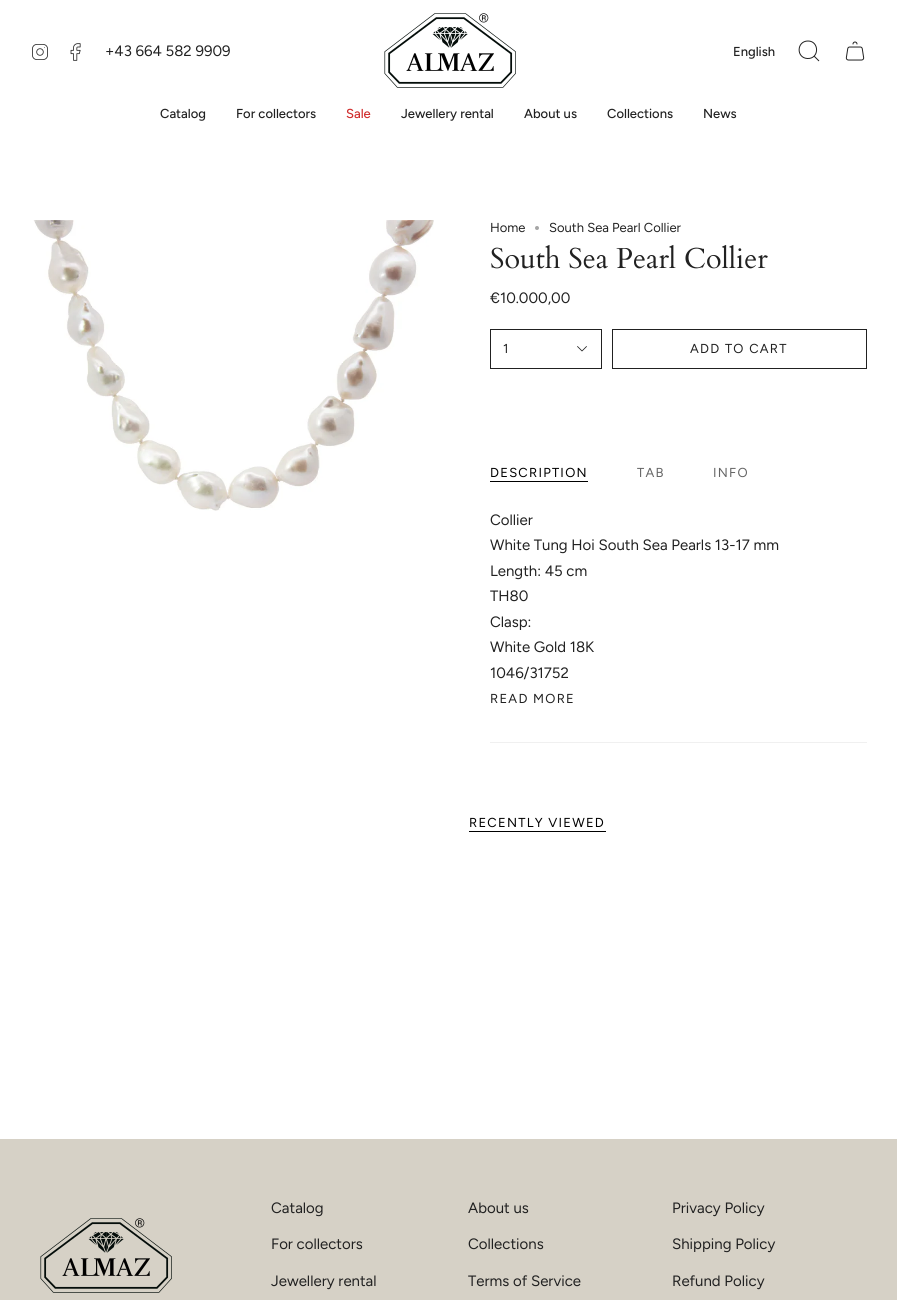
import math
import cairo

surface = cairo.ImageSurface(cairo.FORMAT_RGB24, 897, 1300)
ctx = cairo.Context(surface)
options = cairo.FontOptions()
options.set_hint_metrics(cairo.HINT_METRICS_OFF)
options.set_hint_style(cairo.HINT_STYLE_NONE)
ctx.set_font_options(options)
ctx.set_miter_limit(4)


def set_color(code):
    ctx.set_source_rgb(*(v / 255 for v in bytes.fromhex(code[-6:])))


def draw_text(x, y, s, family, size, color, bold=False, italic=False):
    ctx.select_font_face(family, cairo.FONT_SLANT_ITALIC if italic else cairo.FONT_SLANT_NORMAL, cairo.FONT_WEIGHT_BOLD if bold else cairo.FONT_WEIGHT_NORMAL)
    ctx.set_font_size(size)
    set_color(color)
    ctx.move_to(x, y)
    ctx.show_text(s)


def draw_spaced(x, y, s, letter, word):
    ctx.move_to(x, y)
    for ch in s:
        ctx.show_text(ch)
        ctx.rel_move_to(letter + word * (ch == ' '), 0)


def fill_rect(x, y, w, h, color):
    set_color(color)
    ctx.rectangle(x, y, w, h)
    ctx.fill()


def draw_image(path, x, y, w, h):
    ctx.save()
    ctx.set_source_surface(cairo.ImageSurface.create_from_png(path), x, y)
    ctx.rectangle(x, y, w, h)
    ctx.fill()
    ctx.restore()


set_color("#ffffff")
ctx.paint()
draw_image("assets/img1.png", 32, 44, 16, 16)
draw_image("assets/img2.png", 70, 43, 11, 18)
draw_text(105, 56, "+43 664 582 9909", "Figtree", 15, "#212121")
draw_image("assets/img3.png", 384, 13, 132, 75)
draw_text(733, 56, "English", "Figtree Medium", 13, "#212121")
ctx.new_path()
ctx.move_to(808, 41)
ctx.curve_to(819.5, 41, 819.5, 59, 807.5, 58.5)
ctx.curve_to(796, 58, 796.5, 41, 808, 41)
ctx.close_path()
ctx.move_to(814, 56)
ctx.line_to(819, 61)
ctx.set_line_width(1)
ctx.stroke()
draw_image("assets/img4.png", 845, 41, 20, 20)
draw_text(160, 118, "Catalog", "Figtree Medium", 13, "#212121")
draw_text(236, 118, "For collectors", "Figtree Medium", 13, "#212121")
draw_text(346, 118, "Sale", "Figtree Medium", 13, "#d02e2e")
draw_text(401, 118, "Jewellery rental", "Figtree Medium", 13, "#212121")
draw_text(524, 118, "About us", "Figtree Medium", 13, "#212121")
draw_text(607, 118, "Collections", "Figtree Medium", 13, "#212121")
draw_text(703, 118, "News", "Figtree Medium", 13, "#212121")
draw_image("assets/img5.png", 33, 220, 401, 291)
draw_text(490, 232, "Home", "Figtree", 13, "#212121")
set_color("#a6a6a6")
ctx.new_path()
ctx.arc(537, 228, 2, 0, 2 * math.pi)
ctx.fill()
draw_text(549, 232, "South Sea Pearl Collier", "Figtree", 13, "#212121")
draw_text(490, 268, "South Sea Pearl Collier", "Cardo", 28.75, "#212121")
draw_text(490, 303, "€10.000,00", "Figtree", 15, "#212121")
ctx.rectangle(490.5, 329.5, 111, 39)
ctx.stroke()
draw_text(503, 353, "1", "Figtree", 13, "#212121")
ctx.new_path()
ctx.move_to(577.5, 346.5)
ctx.line_to(582, 351)
ctx.line_to(586.5, 346.5)
ctx.set_line_width(0.8)
ctx.set_line_cap(cairo.LINE_CAP_ROUND)
ctx.set_line_join(cairo.LINE_JOIN_ROUND)
ctx.stroke()
ctx.rectangle(612.5, 329.5, 254, 39)
ctx.set_line_width(1)
ctx.set_line_cap(cairo.LINE_CAP_BUTT)
ctx.set_line_join(cairo.LINE_JOIN_MITER)
ctx.stroke()
draw_spaced(690, 353, "ADD TO CART", 1.25, 0)
set_color("#000000")
draw_spaced(490, 477, "DESCRIPTION", 1.25, 0)
fill_rect(490, 481, 98, 1, "#000000")
set_color("#646464")
draw_spaced(637, 477, "TAB", 1.25, 0)
draw_spaced(713, 477, "INFO", 1.25, 0)
draw_text(490, 525, "Collier", "Figtree", 15, "#212121")
draw_text(490, 550, "White Tung Hoi South Sea Pearls 13-17 mm", "Figtree", 15, "#212121")
draw_text(490, 576, "Length: 45 cm", "Figtree", 15, "#212121")
draw_text(490, 601, "TH80", "Figtree", 15, "#212121")
draw_text(490, 627, "Clasp:", "Figtree", 15, "#212121")
draw_text(490, 652, "White Gold 18K", "Figtree", 15, "#212121")
draw_text(490, 678, "1046/31752", "Figtree", 15, "#212121")
ctx.set_font_size(13)
draw_spaced(490, 703, "READ MORE", 1.25, 0)
fill_rect(490, 742, 377, 1, "#f0f0f0")
set_color("#000000")
draw_spaced(469, 827, "RECENTLY VIEWED", 1.25, 0)
fill_rect(469, 831, 137, 1, "#000000")
fill_rect(0, 1139, 897, 161, "#d6d1c6")
draw_image("assets/img6.png", 40, 1218, 132, 75)
draw_text(271, 1213, "Catalog", "Figtree", 15, "#212121")
draw_text(271, 1249, "For collectors", "Figtree", 15, "#212121")
draw_text(271, 1286, "Jewellery rental", "Figtree", 15, "#212121")
draw_text(468, 1213, "About us", "Figtree", 15, "#212121")
draw_text(468, 1249, "Collections", "Figtree", 15, "#212121")
draw_text(468, 1286, "Terms of Service", "Figtree", 15, "#212121")
draw_text(672, 1213, "Privacy Policy", "Figtree", 15, "#212121")
draw_text(672, 1249, "Shipping Policy", "Figtree", 15, "#212121")
draw_text(672, 1286, "Refund Policy", "Figtree", 15, "#212121")
surface.write_to_png("output.png")
